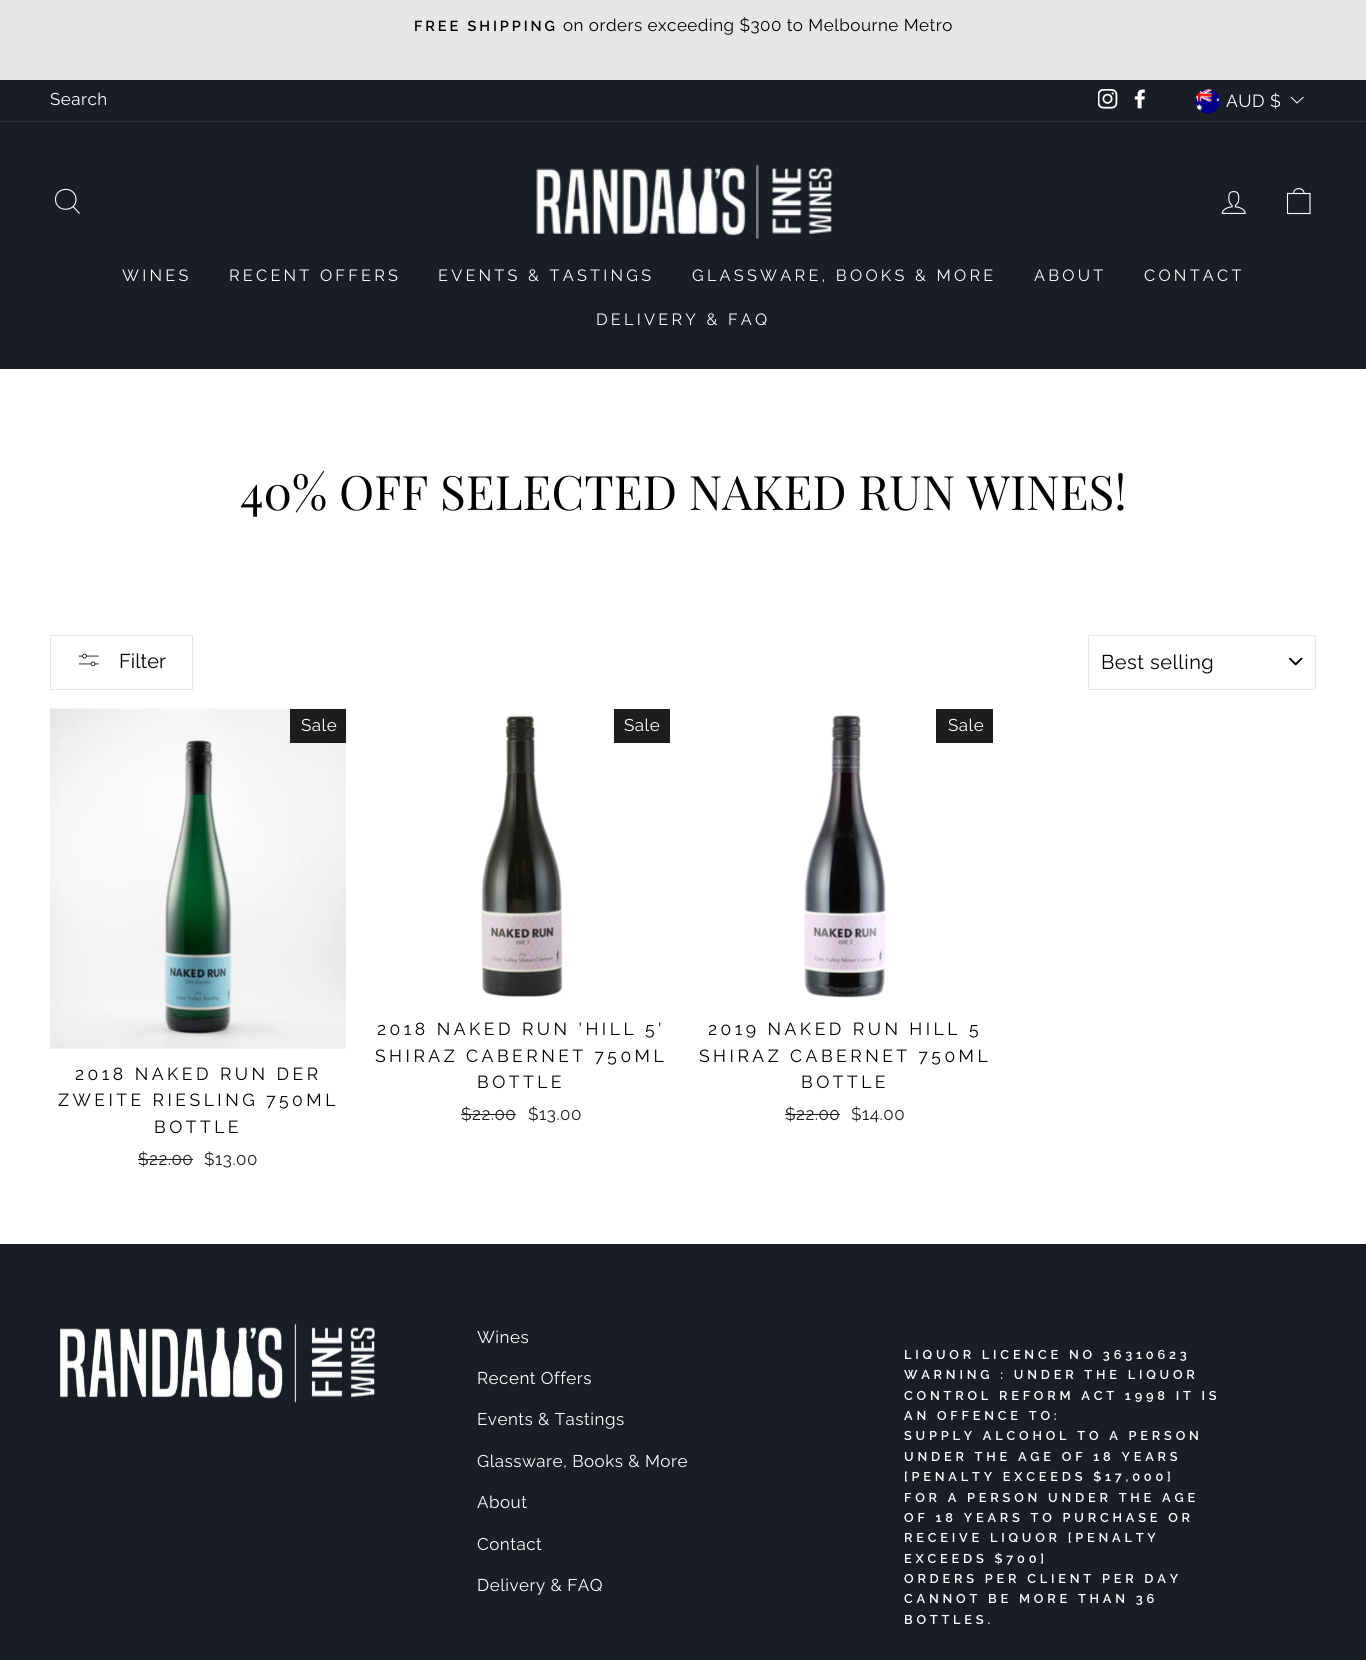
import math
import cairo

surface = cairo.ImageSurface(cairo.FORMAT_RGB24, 1366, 1660)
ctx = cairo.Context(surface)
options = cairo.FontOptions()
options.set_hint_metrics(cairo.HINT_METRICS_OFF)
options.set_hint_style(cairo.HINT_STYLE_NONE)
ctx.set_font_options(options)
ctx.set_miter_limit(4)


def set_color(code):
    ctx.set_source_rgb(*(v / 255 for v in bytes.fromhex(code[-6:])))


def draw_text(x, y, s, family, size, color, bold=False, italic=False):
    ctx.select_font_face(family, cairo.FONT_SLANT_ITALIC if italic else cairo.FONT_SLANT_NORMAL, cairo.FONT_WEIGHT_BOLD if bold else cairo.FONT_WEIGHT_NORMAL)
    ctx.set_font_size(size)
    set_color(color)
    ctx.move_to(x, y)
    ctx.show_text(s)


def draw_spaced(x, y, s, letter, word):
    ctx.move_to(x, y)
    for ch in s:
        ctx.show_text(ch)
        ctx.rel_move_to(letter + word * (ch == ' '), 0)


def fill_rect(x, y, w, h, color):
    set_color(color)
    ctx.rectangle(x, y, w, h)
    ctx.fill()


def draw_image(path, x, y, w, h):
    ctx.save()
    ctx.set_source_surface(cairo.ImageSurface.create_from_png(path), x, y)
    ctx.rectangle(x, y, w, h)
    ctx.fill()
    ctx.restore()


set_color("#ffffff")
ctx.paint()
fill_rect(0, 0, 1366, 80, "#e6e6e6")
ctx.select_font_face("Raleway SemiBold")
ctx.set_font_size(14.5)
set_color("#000000")
draw_spaced(414, 31, "FREE SHIPPING", 2.9, 0)
ctx.select_font_face("Raleway Thin")
ctx.set_font_size(17)
draw_spaced(563, 31, "on orders exceeding $300 to Melbourne Metro", 0.5, 0)
fill_rect(0, 80, 1366, 41, "#181d26")
set_color("#ffffff")
draw_spaced(50, 105, "Search", 0.5, 0)
draw_image("assets/img1.png", 1098, 89, 20, 20)
draw_image("assets/img2.png", 1134, 89, 11, 20)
draw_image("assets/img3.png", 1195, 88, 25, 26)
ctx.set_font_size(17.5)
draw_spaced(1226, 107, "AUD $", 0.5, 0)
ctx.new_path()
ctx.move_to(1291, 97)
ctx.line_to(1297, 103)
ctx.line_to(1303.5, 97)
ctx.set_line_width(1)
ctx.stroke()
fill_rect(0, 122, 1366, 247, "#181d26")
fill_rect(0, 121, 1366, 1, "#2f343c")
ctx.new_path()
ctx.move_to(76, 199.5)
ctx.curve_to(76, 212.5, 55.5, 212.5, 55.5, 199.5)
ctx.curve_to(55.5, 186, 76, 186, 76, 199.5)
ctx.close_path()
ctx.move_to(79.5, 213.5)
ctx.line_to(73, 206.5)
set_color("#ffffff")
ctx.set_line_width(1.1)
ctx.stroke()
draw_image("assets/img4.png", 536, 164, 297, 75)
draw_image("assets/img5.png", 1221, 191, 25, 23)
ctx.new_path()
ctx.move_to(1287.5, 193.5)
ctx.line_to(1310, 193.5)
ctx.line_to(1310, 213.5)
ctx.line_to(1287.5, 213.5)
ctx.close_path()
ctx.move_to(1293.5, 193.5)
ctx.curve_to(1293.5, 187, 1304, 187, 1304, 193.5)
ctx.stroke()
ctx.set_font_size(16.25)
draw_spaced(122, 281, "WINES", 3.25, 0)
draw_spaced(229, 281, "RECENT OFFERS", 3.25, 0)
draw_spaced(438, 281, "EVENTS & TASTINGS", 3.25, 0)
draw_spaced(692, 281, "GLASSWARE, BOOKS & MORE", 3.25, 0)
draw_spaced(1034, 281, "ABOUT", 3.25, 0)
draw_spaced(1144, 281, "CONTACT", 3.25, 0)
draw_spaced(596, 325, "DELIVERY & FAQ", 3.25, 0)
draw_text(240, 510, "40% OFF SELECTED NAKED RUN WINES!", "Playfair Display", 47.5, "#000000")
ctx.rectangle(50.5, 635.5, 142, 54)
set_color("#e8e8e1")
ctx.set_line_width(1)
ctx.stroke()
draw_image("assets/img6.png", 78, 653, 21, 14)
draw_text(119, 668, "Filter", "Raleway Thin", 20, "#000000")
draw_image("assets/img7.png", 1289, 658, 14, 8)
ctx.rectangle(1088.5, 635.5, 227, 54)
set_color("#e8e8e1")
ctx.stroke()
set_color("#000000")
draw_spaced(1101, 669, "Best selling", 0.5, 0)
draw_image("assets/img8.png", 50, 708, 296, 341)
fill_rect(290, 709, 56, 34, "#1c1d1d")
ctx.set_font_size(17)
set_color("#ffffff")
draw_spaced(301, 731, "Sale", 0.5, 0)
ctx.set_font_size(17.5)
set_color("#000000")
draw_spaced(75, 1080, "2018 NAKED RUN DER", 3.5, 0)
draw_spaced(58, 1106, "ZWEITE RIESLING 750ML", 3.5, 0)
draw_spaced(154, 1133, "BOTTLE", 3.5, 0)
ctx.set_font_size(17)
set_color("#1c1d1d")
draw_spaced(138, 1165, "$22.00", 0.5, 0)
fill_rect(138, 1159, 55, 1, "#1c1d1d")
draw_spaced(204, 1165, "$13.00", 0.5, 0)
fill_rect(614, 709, 56, 34, "#1c1d1d")
set_color("#ffffff")
draw_spaced(624, 731, "Sale", 0.5, 0)
draw_image("assets/img9.png", 481, 715, 84, 282)
ctx.set_font_size(17.5)
set_color("#000000")
draw_spaced(377, 1035, "2018 NAKED RUN 'HILL 5'", 3.5, 0)
draw_spaced(375, 1062, "SHIRAZ CABERNET 750ML", 3.5, 0)
draw_spaced(477, 1088, "BOTTLE", 3.5, 0)
ctx.set_font_size(17)
set_color("#1c1d1d")
draw_spaced(461, 1120, "$22.00", 0.5, 0)
fill_rect(461, 1114, 55, 1, "#1c1d1d")
draw_spaced(528, 1120, "$13.00", 0.5, 0)
fill_rect(936, 709, 57, 34, "#1c1d1d")
set_color("#ffffff")
draw_spaced(948, 731, "Sale", 0.5, 0)
draw_image("assets/img10.png", 803, 715, 85, 283)
ctx.set_font_size(17.5)
set_color("#000000")
draw_spaced(708, 1035, "2019 NAKED RUN HILL 5", 3.5, 0)
draw_spaced(699, 1062, "SHIRAZ CABERNET 750ML", 3.5, 0)
draw_spaced(801, 1088, "BOTTLE", 3.5, 0)
ctx.set_font_size(17)
set_color("#1c1d1d")
draw_spaced(785, 1120, "$22.00", 0.5, 0)
fill_rect(785, 1114, 55, 1, "#1c1d1d")
draw_spaced(851, 1120, "$14.00", 0.5, 0)
fill_rect(0, 1244, 1366, 416, "#181d26")
draw_image("assets/img11.png", 60, 1323, 315, 80)
set_color("#ffffff")
draw_spaced(477, 1343, "Wines", 0.5, 0)
draw_spaced(477, 1384, "Recent Offers", 0.5, 0)
draw_spaced(477, 1425, "Events & Tastings", 0.5, 0)
draw_spaced(477, 1467, "Glassware, Books & More", 0.5, 0)
draw_spaced(477, 1508, "About", 0.5, 0)
draw_spaced(477, 1550, "Contact", 0.5, 0)
draw_spaced(477, 1591, "Delivery & FAQ", 0.5, 0)
ctx.select_font_face("Raleway SemiBold")
ctx.set_font_size(12.75)
draw_spaced(904, 1359, "LIQUOR LICENCE NO 36310623", 3.8, 0)
draw_spaced(904, 1379, "WARNING : UNDER THE LIQUOR", 3.8, 0)
draw_spaced(904, 1400, "CONTROL REFORM ACT 1998 IT IS", 3.8, 0)
draw_spaced(904, 1420, "AN OFFENCE TO:", 3.8, 0)
draw_spaced(904, 1440, "SUPPLY ALCOHOL TO A PERSON", 3.8, 0)
draw_spaced(904, 1461, "UNDER THE AGE OF 18 YEARS", 3.8, 0)
draw_spaced(904, 1481, "[PENALTY EXCEEDS $17,000]", 3.8, 0)
draw_spaced(904, 1502, "FOR A PERSON UNDER THE AGE", 3.8, 0)
draw_spaced(904, 1522, "OF 18 YEARS TO PURCHASE OR", 3.8, 0)
draw_spaced(904, 1542, "RECEIVE LIQUOR [PENALTY", 3.8, 0)
draw_spaced(904, 1563, "EXCEEDS $700]", 3.8, 0)
draw_spaced(904, 1583, "ORDERS PER CLIENT PER DAY", 3.8, 0)
draw_spaced(904, 1603, "CANNOT BE MORE THAN 36", 3.8, 0)
draw_spaced(904, 1624, "BOTTLES.", 3.8, 0)
surface.write_to_png("output.png")
